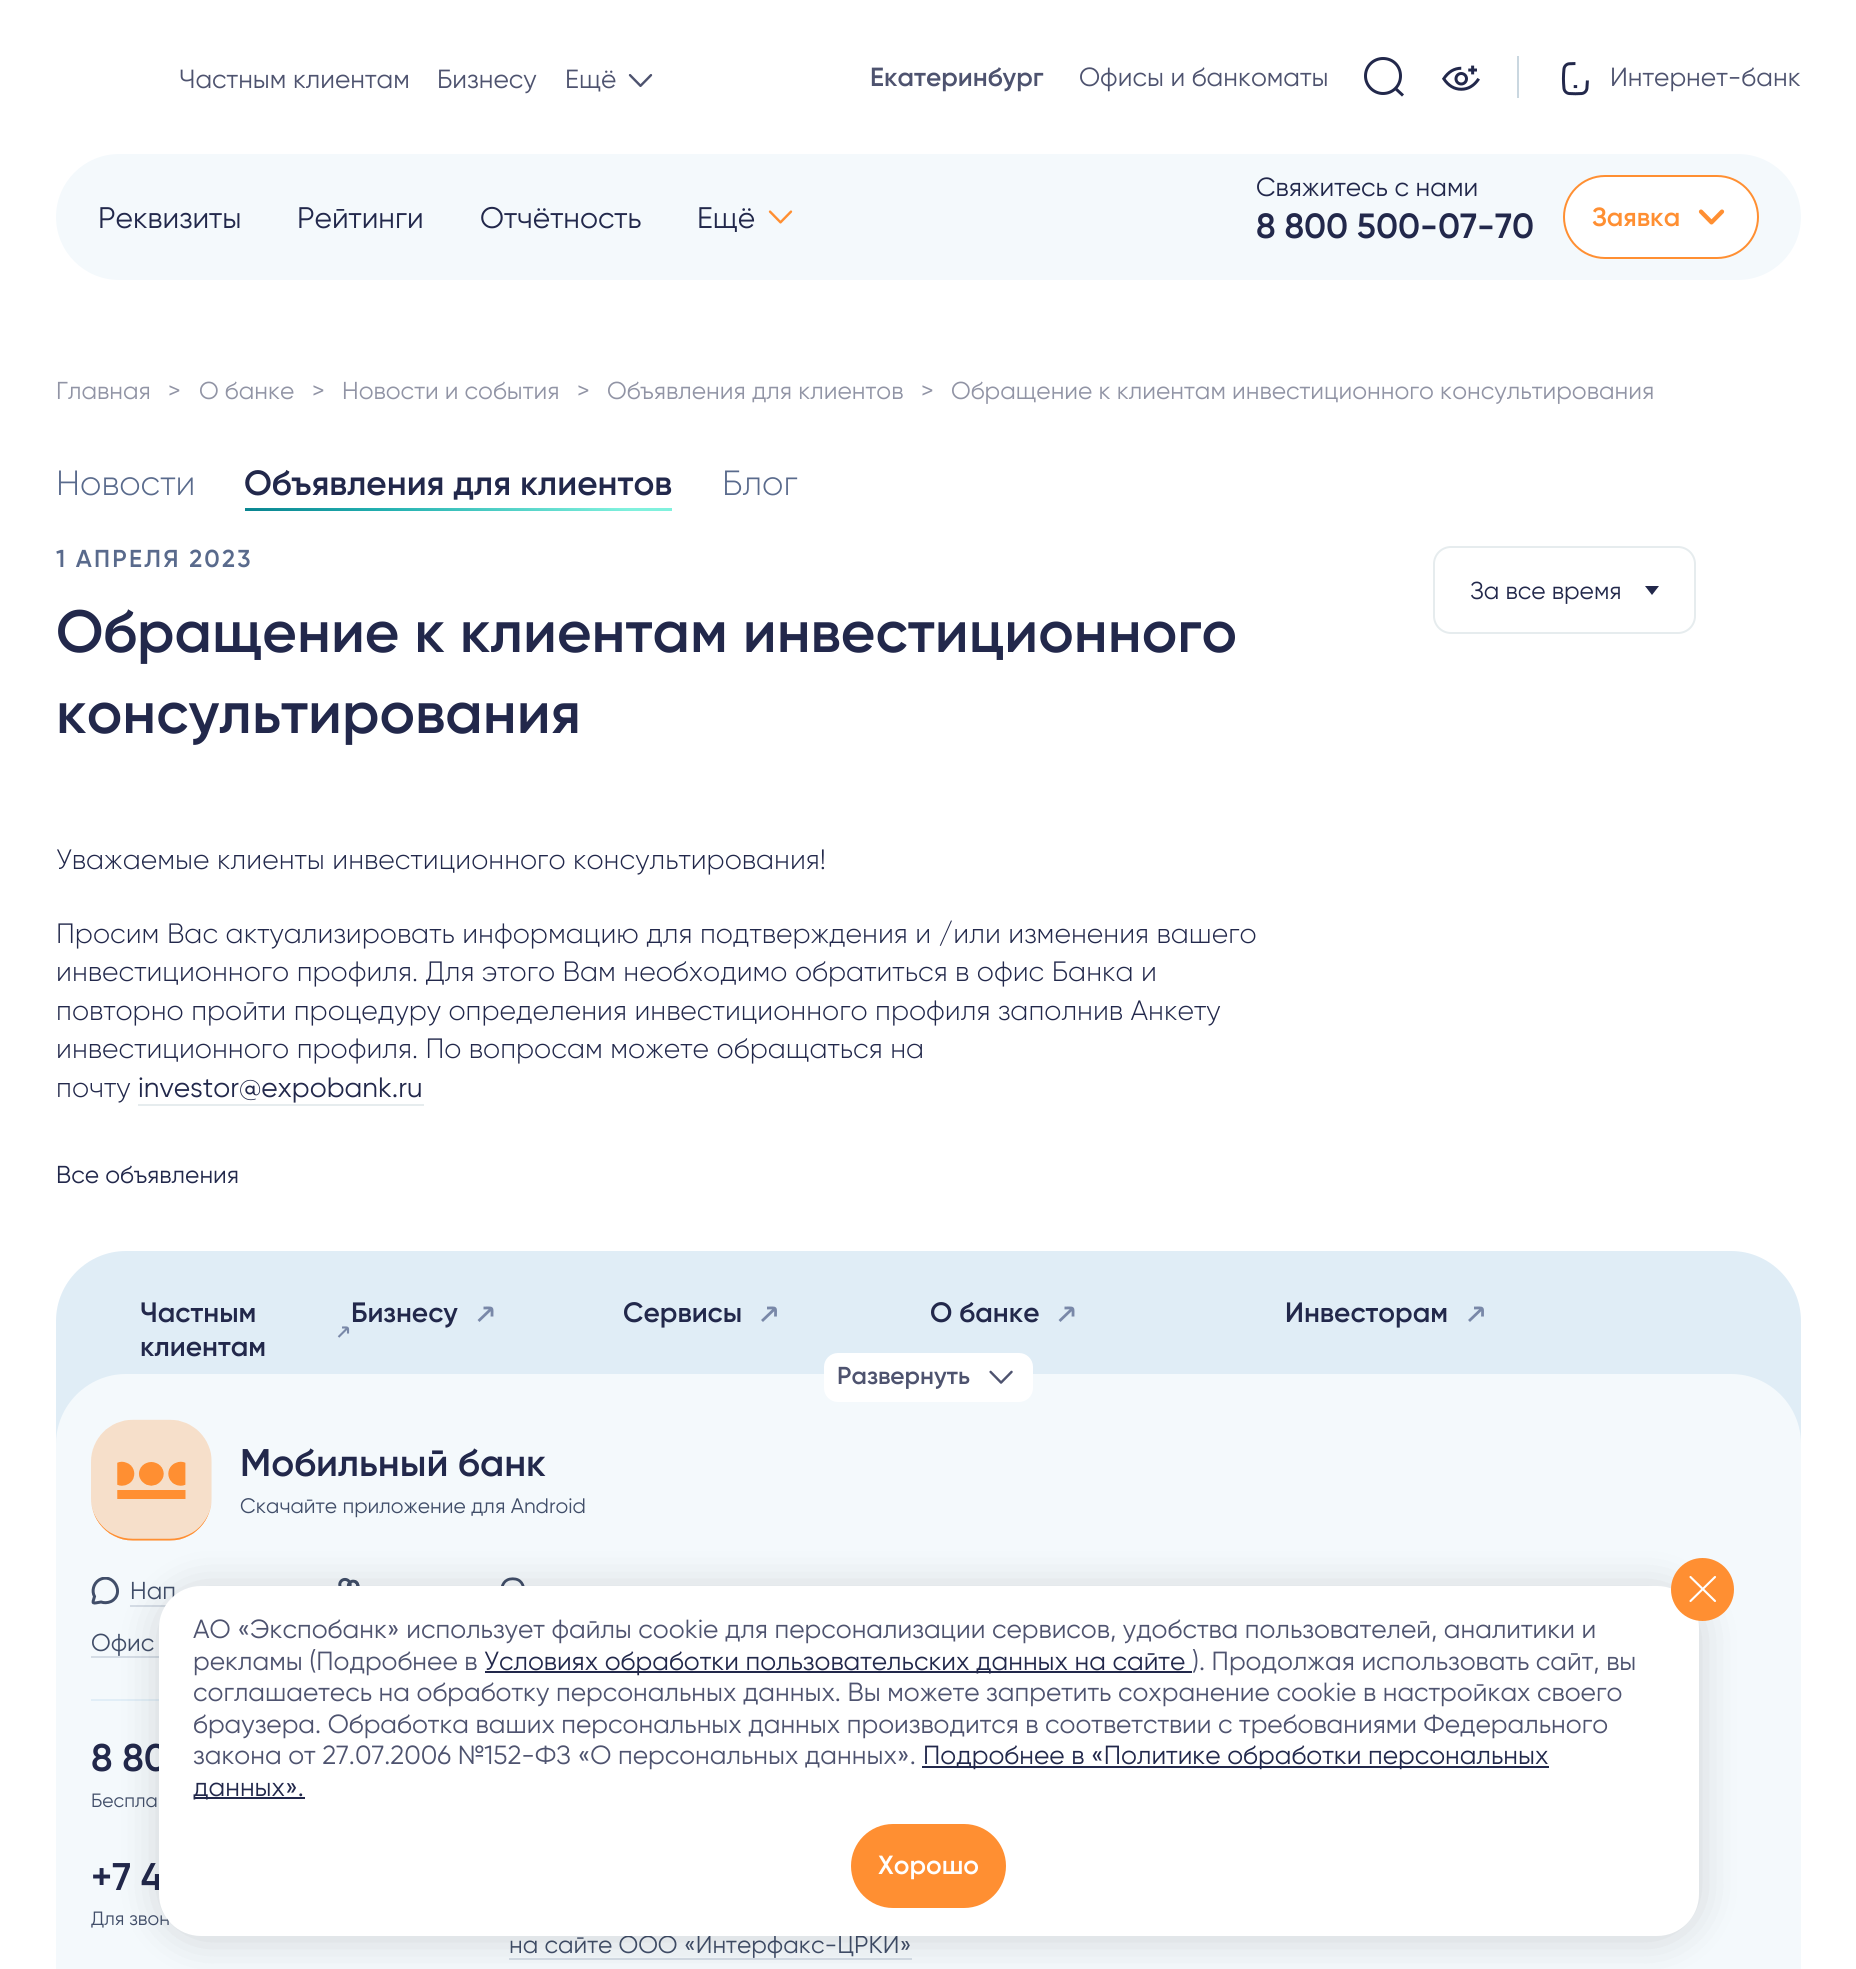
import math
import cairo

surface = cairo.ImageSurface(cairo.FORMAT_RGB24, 1856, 1969)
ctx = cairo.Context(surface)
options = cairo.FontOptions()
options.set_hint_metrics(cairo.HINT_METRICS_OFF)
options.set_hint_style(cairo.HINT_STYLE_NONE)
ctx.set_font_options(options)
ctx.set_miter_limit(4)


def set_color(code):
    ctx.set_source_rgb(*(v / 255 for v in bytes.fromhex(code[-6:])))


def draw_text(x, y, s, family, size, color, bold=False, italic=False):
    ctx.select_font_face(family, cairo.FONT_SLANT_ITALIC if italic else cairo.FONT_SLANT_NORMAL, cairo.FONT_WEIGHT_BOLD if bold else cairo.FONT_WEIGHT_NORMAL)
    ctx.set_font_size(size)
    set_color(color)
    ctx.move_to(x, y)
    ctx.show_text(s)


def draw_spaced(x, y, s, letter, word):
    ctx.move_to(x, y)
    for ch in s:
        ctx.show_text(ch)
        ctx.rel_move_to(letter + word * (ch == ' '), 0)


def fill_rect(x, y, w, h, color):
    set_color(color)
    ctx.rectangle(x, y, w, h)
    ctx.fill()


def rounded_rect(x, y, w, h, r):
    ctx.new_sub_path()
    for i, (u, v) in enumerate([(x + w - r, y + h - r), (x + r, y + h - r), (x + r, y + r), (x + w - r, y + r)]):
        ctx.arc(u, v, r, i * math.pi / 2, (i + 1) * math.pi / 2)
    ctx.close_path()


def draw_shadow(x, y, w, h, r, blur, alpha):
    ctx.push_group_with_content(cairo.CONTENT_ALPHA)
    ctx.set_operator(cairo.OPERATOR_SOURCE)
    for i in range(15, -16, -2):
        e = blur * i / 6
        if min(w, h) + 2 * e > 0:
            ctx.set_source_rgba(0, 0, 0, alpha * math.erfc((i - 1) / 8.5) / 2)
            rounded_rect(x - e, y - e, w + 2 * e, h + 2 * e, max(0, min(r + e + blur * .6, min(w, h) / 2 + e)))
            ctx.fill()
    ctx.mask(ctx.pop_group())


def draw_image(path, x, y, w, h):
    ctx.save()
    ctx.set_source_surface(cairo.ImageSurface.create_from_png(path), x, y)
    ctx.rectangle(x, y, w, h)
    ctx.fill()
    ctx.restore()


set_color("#ffffff")
ctx.paint()
draw_text(179, 88, "Частным клиентам", "Gilroy", 26.25, "#4e536f")
draw_text(437, 88, "Бизнесу", "Gilroy", 26.25, "#4e536f")
draw_text(565, 88, "Ещё", "Gilroy", 26.25, "#4e536f")
draw_image("assets/img1.png", 628, 74, 25, 13)
draw_text(870, 86, "Екатеринбург", "Gilroy SemiBold", 26.25, "#4e536f")
draw_text(1079, 86, "Офисы и банкоматы", "Gilroy", 26.25, "#4e536f")
ctx.new_path()
ctx.move_to(1383, 93.5)
ctx.curve_to(1393, 93.5, 1400.5, 85.5, 1400.5, 76)
ctx.curve_to(1400.5, 66, 1393, 58.5, 1383, 58.5)
ctx.curve_to(1373.5, 58.5, 1365.5, 66, 1365.5, 76)
ctx.curve_to(1365.5, 85.5, 1373.5, 93.5, 1383, 93.5)
ctx.close_path()
ctx.move_to(1403, 95.5)
ctx.line_to(1395.5, 88.5)
set_color("#22284b")
ctx.set_line_width(3)
ctx.stroke()
draw_image("assets/img2.png", 1442, 65, 38, 26)
fill_rect(1517, 56, 2, 42, "#cad7e0")
draw_image("assets/img3.png", 1561, 62, 28, 34)
draw_text(1610, 86, "Интернет-банк", "Gilroy", 26.25, "#4e536f")
set_color("#f4f9fc")
rounded_rect(56, 154, 1745, 126, 63)
ctx.fill()
draw_text(98, 228, "Реквизиты", "Gilroy", 29.75, "#22284b")
draw_text(297, 228, "Рейтинги", "Gilroy", 29.75, "#22284b")
draw_text(480, 228, "Отчётность", "Gilroy", 29.75, "#22284b")
draw_text(697, 228, "Ещё", "Gilroy", 29.75, "#22284b")
draw_image("assets/img4.png", 768, 210, 25, 14)
draw_text(1256, 196, "Свяжитесь с нами", "Gilroy", 26.25, "#22284b")
draw_text(1256, 238, "8 800 500-07-70", "Gilroy SemiBold", 35, "#22284b")
set_color("#ffffff")
rounded_rect(1564, 176, 194, 82, 41)
ctx.fill_preserve()
set_color("#ff8f32")
ctx.set_line_width(2)
ctx.stroke()
draw_text(1592, 226, "Заявка", "Gilroy SemiBold", 26.25, "#ff8f32")
draw_image("assets/img5.png", 1698, 209, 27, 16)
draw_text(56, 399, "Главная", "Gilroy", 24.5, "#9194a5")
draw_text(168, 399, ">", "Gilroy", 24.5, "#9194a5")
draw_text(199, 399, "О банке", "Gilroy", 24.5, "#9194a5")
draw_text(312, 399, ">", "Gilroy", 24.5, "#9194a5")
draw_text(342, 399, "Новости и события", "Gilroy", 24.5, "#9194a5")
draw_text(577, 399, ">", "Gilroy", 24.5, "#9194a5")
draw_text(607, 399, "Объявления для клиентов", "Gilroy", 24.5, "#9194a5")
draw_text(921, 399, ">", "Gilroy", 24.5, "#9194a5")
draw_text(951, 399, "Обращение к клиентам инвестиционного консультирования", "Gilroy", 24.5, "#9194a5")
draw_text(56, 495, "Новости", "Gilroy Light", 35, "#596a8c")
draw_text(244, 495, "Объявления для клиентов", "Gilroy SemiBold", 35, "#22284b")
gradient = cairo.LinearGradient(454, 540, 462, 480)
gradient.add_color_stop_rgba(0, 0.024, 0.498, 0.549, 1)
gradient.add_color_stop_rgba(0.34, 0.137, 0.69, 0.69, 1)
gradient.add_color_stop_rgba(0.88, 0.502, 0.945, 0.867, 1)
ctx.set_source(gradient)
ctx.rectangle(245, 508, 427, 3)
ctx.fill()
draw_text(722, 495, "Блог", "Gilroy Light", 35, "#596a8c")
ctx.select_font_face("Gilroy SemiBold")
ctx.set_font_size(24.5)
draw_spaced(56, 567, "1 АПРЕЛЯ 2023", 2.25, 0)
draw_text(56, 652, "Обращение к клиентам инвестиционного", "Gilroy SemiBold", 59.5, "#22284b")
draw_text(56, 733, "консультирования", "Gilroy SemiBold", 59.5, "#22284b")
draw_text(56, 869, "Уважаемые клиенты инвестиционного консультирования!", "Gilroy Light", 28, "#22284b")
draw_text(56, 943, "Просим Вас актуализировать информацию для подтверждения и /или изменения вашего", "Gilroy Light", 28, "#22284b")
draw_text(56, 981, "инвестиционного профиля. Для этого Вам необходимо обратиться в офис Банка и", "Gilroy Light", 28, "#22284b")
draw_text(56, 1020, "повторно пройти процедуру определения инвестиционного профиля заполнив Анкету", "Gilroy Light", 28, "#22284b")
draw_text(56, 1058, "инвестиционного профиля. По вопросам можете обращаться на", "Gilroy Light", 28, "#22284b")
draw_text(56, 1097, "почту", "Gilroy Light", 28, "#22284b")
draw_text(138, 1097, "investor@expobank.ru", "Gilroy", 28, "#22284b")
fill_rect(138, 1104, 286, 2, "#e6ecee")
draw_text(56, 1183, "Все объявления", "Gilroy", 24.5, "#22284b")
rounded_rect(1434, 547, 261, 86, 17)
set_color("#e6ecee")
ctx.stroke()
draw_text(1470, 599, "За все время", "Gilroy", 24.5, "#22284b")
ctx.new_path()
ctx.move_to(1645, 586)
ctx.line_to(1659, 586)
ctx.line_to(1652, 595)
ctx.close_path()
ctx.fill()
set_color("#e0edf6")
ctx.new_path()
ctx.move_to(126, 1251)
ctx.line_to(1731, 1251)
ctx.curve_to(1769.5, 1251, 1801, 1282.5, 1801, 1321)
ctx.line_to(1801, 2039)
ctx.line_to(56, 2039)
ctx.line_to(56, 1321)
ctx.curve_to(56, 1282.5, 87.5, 1251, 126, 1251)
ctx.close_path()
ctx.fill()
draw_text(140, 1322, "Частным", "Gilroy SemiBold", 28, "#22284b")
ctx.new_path()
ctx.move_to(342, 1327.5)
ctx.curve_to(349, 1327.5, 348, 1326.5, 348, 1333.5)
ctx.move_to(338.5, 1337)
ctx.line_to(347, 1328.5)
set_color("#7988a8")
ctx.set_line_width(2.1)
ctx.stroke()
draw_text(140, 1356, "клиентам", "Gilroy SemiBold", 28, "#22284b")
draw_text(351, 1322, "Бизнесу", "Gilroy SemiBold", 28, "#22284b")
ctx.new_path()
ctx.move_to(483.5, 1308)
ctx.curve_to(493.5, 1308, 492, 1306.5, 492, 1316.5)
ctx.move_to(478.5, 1321)
ctx.line_to(490.5, 1309.5)
set_color("#7988a8")
ctx.set_line_width(2.8)
ctx.stroke()
draw_text(623, 1322, "Сервисы", "Gilroy SemiBold", 28, "#22284b")
ctx.new_path()
ctx.move_to(767, 1308)
ctx.curve_to(777, 1308, 775.5, 1306.5, 775.5, 1316.5)
ctx.move_to(762, 1321)
ctx.line_to(774, 1309.5)
set_color("#7988a8")
ctx.stroke()
draw_text(930, 1322, "О банке", "Gilroy SemiBold", 28, "#22284b")
ctx.new_path()
ctx.move_to(1064.5, 1308)
ctx.curve_to(1074.5, 1308, 1073, 1306.5, 1073, 1316.5)
ctx.move_to(1059.5, 1321)
ctx.line_to(1071.5, 1309.5)
set_color("#7988a8")
ctx.stroke()
draw_text(1285, 1322, "Инвесторам", "Gilroy SemiBold", 28, "#22284b")
ctx.new_path()
ctx.move_to(1474, 1308)
ctx.curve_to(1484, 1308, 1482.5, 1306.5, 1482.5, 1316.5)
ctx.move_to(1469, 1321)
ctx.line_to(1481, 1309.5)
set_color("#7988a8")
ctx.stroke()
set_color("#f4f9fc")
ctx.new_path()
ctx.move_to(126, 1374)
ctx.line_to(1731, 1374)
ctx.curve_to(1769.5, 1374, 1801, 1405.5, 1801, 1444)
ctx.line_to(1801, 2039)
ctx.line_to(56, 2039)
ctx.line_to(56, 1444)
ctx.curve_to(56, 1405.5, 87.5, 1374, 126, 1374)
ctx.close_path()
ctx.fill()
set_color("#ffffff")
rounded_rect(824, 1353, 209, 49, 14)
ctx.fill()
draw_text(837, 1384, "Развернуть", "Gilroy SemiBold", 24.5, "#4e536f")
draw_image("assets/img6.png", 989, 1370, 24, 14)
draw_image("assets/img7.png", 91, 1419, 121, 122)
draw_text(240, 1476, "Мобильный банк", "Gilroy SemiBold", 38.5, "#22284b")
draw_text(240, 1513, "Скачайте приложение для Android", "Gilroy", 21, "#414e69")
ctx.save()
ctx.rectangle(91, 1577, 28, 28)
ctx.clip()
ctx.new_path()
ctx.move_to(99, 1580)
ctx.curve_to(113.5, 1571.5, 125.5, 1594, 111, 1601.5)
ctx.curve_to(107.5, 1603, 104, 1603, 101, 1602)
ctx.curve_to(92, 1603.5, 92, 1604.5, 94.5, 1596.5)
ctx.curve_to(91.5, 1591, 93.5, 1583.5, 99, 1580)
ctx.close_path()
ctx.set_line_width(3)
ctx.stroke()
ctx.restore()
fill_rect(130, 1605, 36, 2, "#d4dce5")
draw_text(130, 1599, "Нап", "Gilroy", 24.5, "#414e69")
draw_image("assets/img8.png", 338, 1577, 22, 9)
draw_image("assets/img9.png", 501, 1577, 24, 9)
draw_text(91, 1651, "Офис", "Gilroy", 24.5, "#414e69")
fill_rect(91, 1656, 68, 2, "#d4dce5")
fill_rect(91, 1699, 68, 2, "#e1eef7")
draw_text(91, 1771, "8 80", "Gilroy SemiBold", 38.5, "#22284b")
draw_text(91, 1807, "Беспла", "Gilroy", 19.25, "#414e69")
draw_text(91, 1890, "+7 4", "Gilroy SemiBold", 38.5, "#22284b")
draw_text(91, 1925, "Для звон", "Gilroy", 19.25, "#414e69")
draw_text(509, 1953, "на сайте ООО «Интерфакс-ЦРКИ»", "Gilroy", 24.5, "#414e69")
fill_rect(509, 1958, 403, 2, "#d4dce5")
set_color("#000000")
draw_shadow(159, 1589, 1540, 350, 42, 21, 0.15)
set_color("#ffffff")
rounded_rect(159, 1586, 1540, 350, 42)
ctx.fill()
set_color("#ff8f32")
ctx.arc(1702.5, 1589.5, 31.5, 0, 2 * math.pi)
ctx.fill()
ctx.new_path()
ctx.move_to(1715, 1601)
ctx.line_to(1690.5, 1577)
ctx.move_to(1690.5, 1601)
ctx.line_to(1715, 1577)
set_color("#ffffff")
ctx.set_line_width(2.1)
ctx.set_line_cap(cairo.LINE_CAP_ROUND)
ctx.stroke()
draw_text(193, 1638, "АО «Экспобанк» использует файлы cookie для персонализации сервисов, удобства пользователей, аналитики и", "Gilroy", 26.25, "#4e536f")
draw_text(193, 1670, "рекламы (Подробнее в", "Gilroy", 26.25, "#4e536f")
fill_rect(485, 1671, 707, 2, "#22284b")
draw_text(484, 1670, "Условиях обработки пользовательских данных на сайте", "Gilroy", 26.25, "#22284b")
draw_text(1192, 1670, "). Продолжая использовать сайт, вы", "Gilroy", 26.25, "#4e536f")
draw_text(193, 1701, "соглашаетесь на обработку персональных данных. Вы можете запретить сохранение cookie в настройках своего", "Gilroy", 26.25, "#4e536f")
draw_text(193, 1733, "браузера. Обработка ваших персональных данных производится в соответствии с требованиями Федерального", "Gilroy", 26.25, "#4e536f")
draw_text(193, 1764, "закона от 27.07.2006 №152-ФЗ «О персональных данных».", "Gilroy", 26.25, "#4e536f")
fill_rect(922, 1766, 627, 2, "#22284b")
draw_text(923, 1764, "Подробнее в «Политике обработки персональных", "Gilroy", 26.25, "#22284b")
fill_rect(194, 1797, 111, 2, "#22284b")
draw_text(193, 1796, "данных».", "Gilroy", 26.25, "#22284b")
set_color("#ff8f32")
rounded_rect(851, 1824, 155, 84, 42)
ctx.fill()
draw_text(878, 1874, "Хорошо", "Gilroy SemiBold", 26.25, "#ffffff")
surface.write_to_png("output.png")
